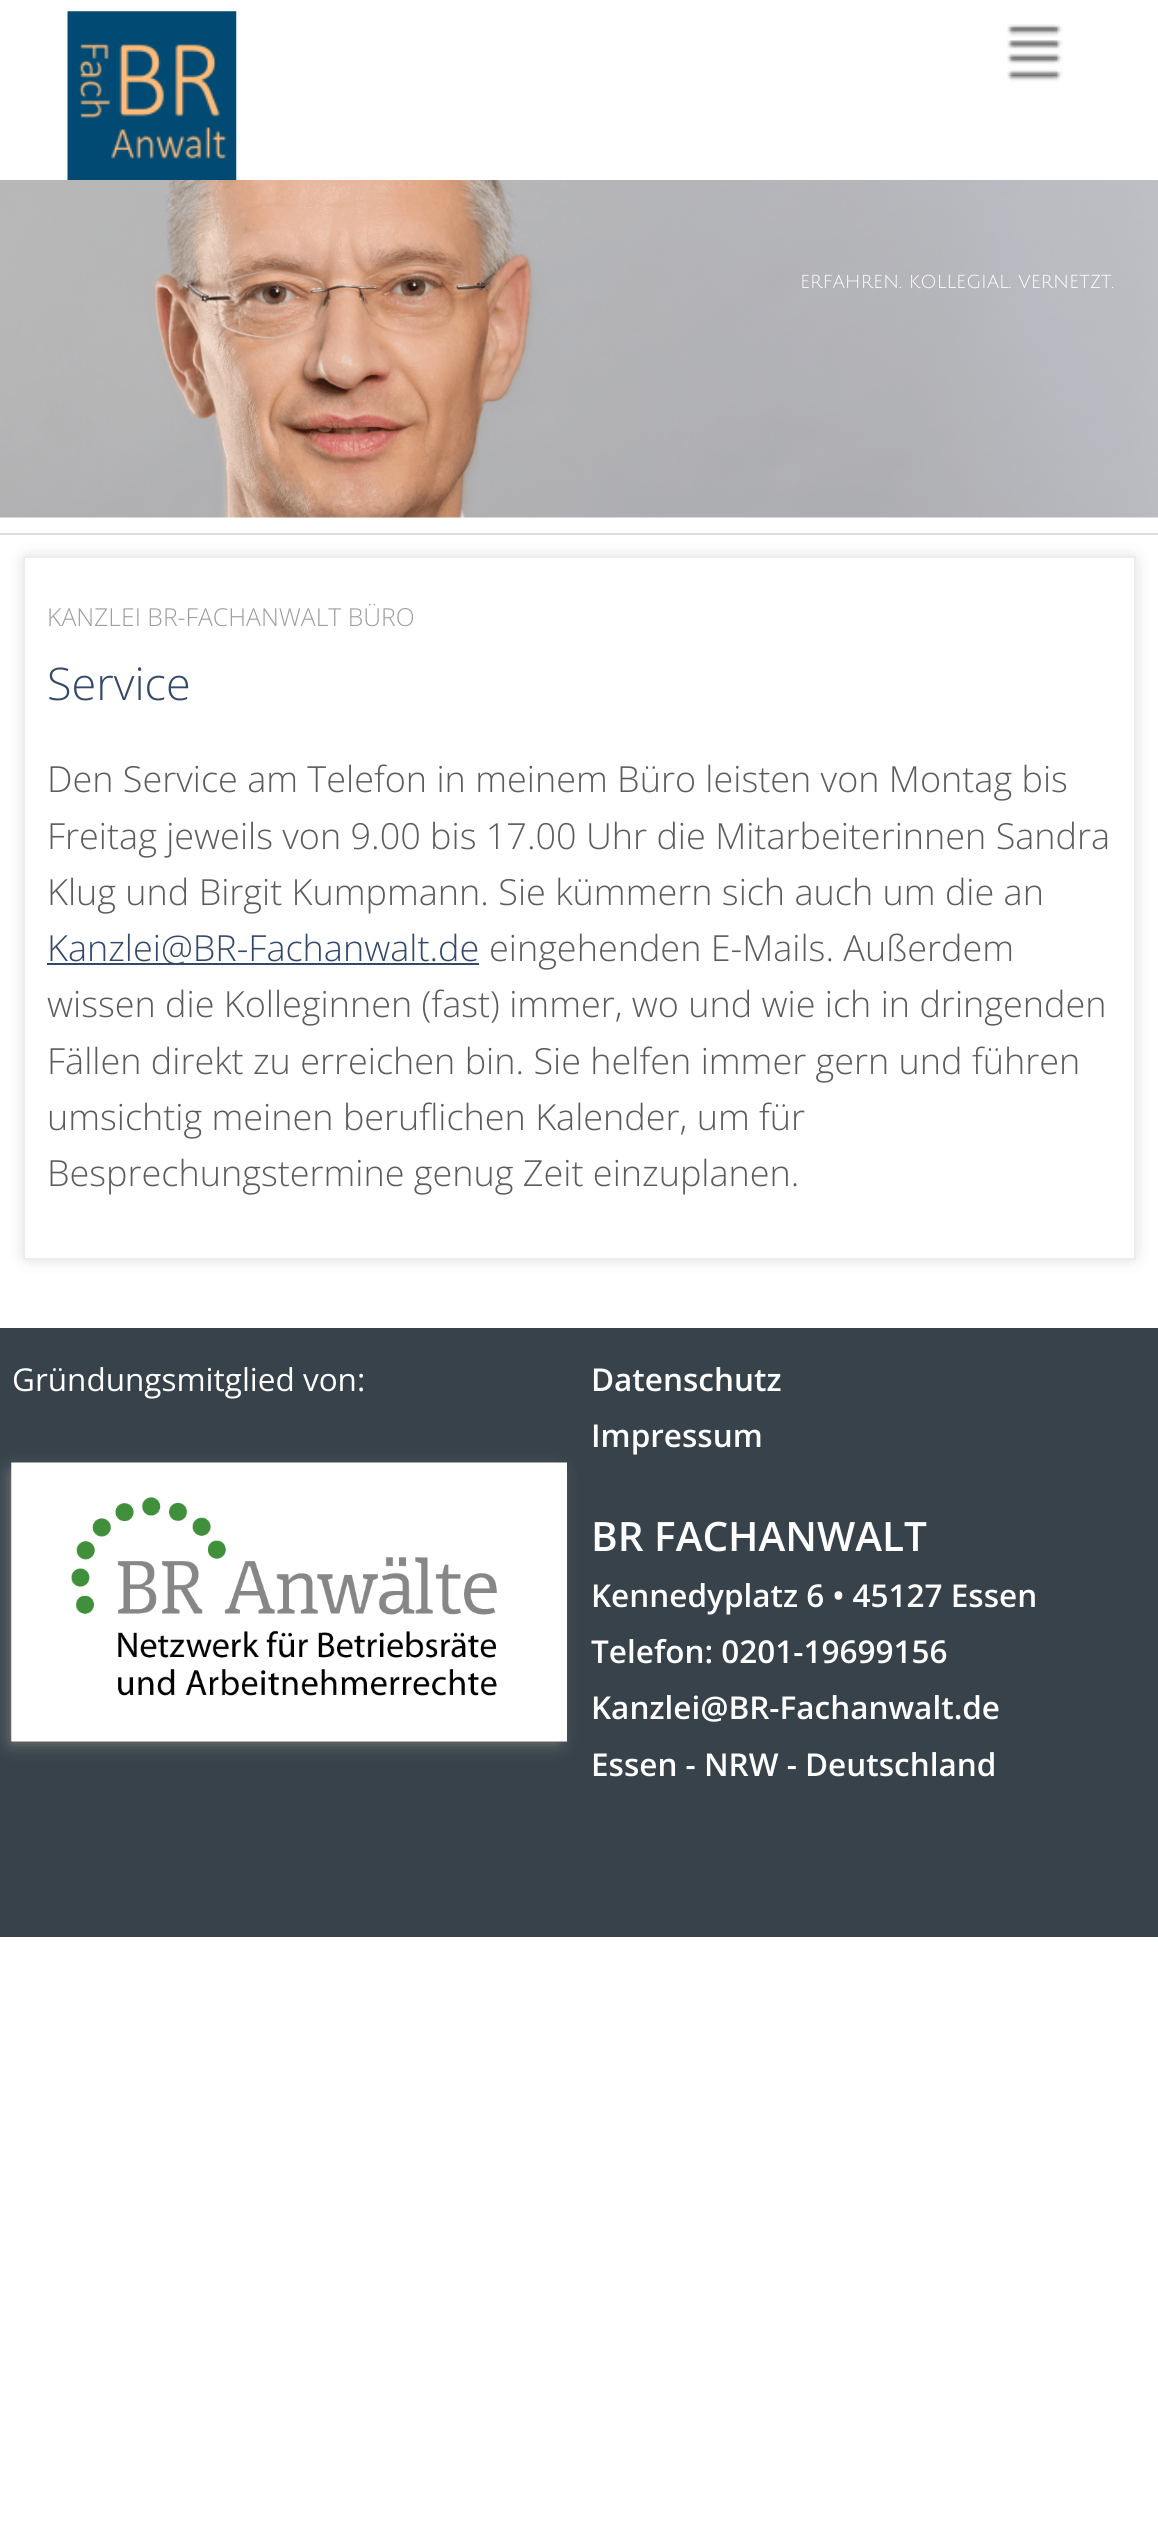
import math
import cairo

surface = cairo.ImageSurface(cairo.FORMAT_RGB24, 1158, 2535)
ctx = cairo.Context(surface)
options = cairo.FontOptions()
options.set_hint_metrics(cairo.HINT_METRICS_OFF)
options.set_hint_style(cairo.HINT_STYLE_NONE)
ctx.set_font_options(options)
ctx.set_miter_limit(4)


def set_color(code):
    ctx.set_source_rgb(*(v / 255 for v in bytes.fromhex(code[-6:])))


def draw_text(x, y, s, family, size, color, bold=False, italic=False):
    ctx.select_font_face(family, cairo.FONT_SLANT_ITALIC if italic else cairo.FONT_SLANT_NORMAL, cairo.FONT_WEIGHT_BOLD if bold else cairo.FONT_WEIGHT_NORMAL)
    ctx.set_font_size(size)
    set_color(color)
    ctx.move_to(x, y)
    ctx.show_text(s)


def fill_rect(x, y, w, h, color):
    set_color(color)
    ctx.rectangle(x, y, w, h)
    ctx.fill()


def rounded_rect(x, y, w, h, r):
    ctx.new_sub_path()
    for i, (u, v) in enumerate([(x + w - r, y + h - r), (x + r, y + h - r), (x + r, y + r), (x + w - r, y + r)]):
        ctx.arc(u, v, r, i * math.pi / 2, (i + 1) * math.pi / 2)
    ctx.close_path()


def draw_shadow(x, y, w, h, r, blur, alpha):
    ctx.push_group_with_content(cairo.CONTENT_ALPHA)
    ctx.set_operator(cairo.OPERATOR_SOURCE)
    for i in range(15, -16, -2):
        e = blur * i / 6
        if min(w, h) + 2 * e > 0:
            ctx.set_source_rgba(0, 0, 0, alpha * math.erfc((i - 1) / 8.5) / 2)
            rounded_rect(x - e, y - e, w + 2 * e, h + 2 * e, max(0, min(r + e + blur * .6, min(w, h) / 2 + e)))
            ctx.fill()
    ctx.mask(ctx.pop_group())


def draw_image(path, x, y, w, h):
    ctx.save()
    ctx.set_source_surface(cairo.ImageSurface.create_from_png(path), x, y)
    ctx.rectangle(x, y, w, h)
    ctx.fill()
    ctx.restore()


set_color("#ffffff")
ctx.paint()
draw_image("assets/img1.png", 67, 11, 170, 169)
draw_image("assets/img2.png", 1007, 24, 56, 58)
ctx.save()
ctx.set_fill_rule(cairo.FILL_RULE_EVEN_ODD)
ctx.new_path()
ctx.move_to(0, 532)
ctx.line_to(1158, 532)
ctx.line_to(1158, 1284)
ctx.line_to(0, 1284)
ctx.close_path()
ctx.move_to(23, 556)
ctx.line_to(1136, 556)
ctx.line_to(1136, 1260)
ctx.line_to(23, 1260)
ctx.close_path()
ctx.clip()
set_color("#000000")
draw_shadow(27, 560, 1105, 696, 0, 9, 0.2)
ctx.restore()
fill_rect(0, 533, 1158, 2, "#dddddd")
draw_image("assets/img3.png", 0, 180, 1158, 338)
draw_text(800, 288, "erfahren. kollegial. vernetzt.", "Julius Sans One", 20.25, "#ffffff")
ctx.rectangle(24, 557, 1111, 702)
set_color("#ededed")
ctx.stroke()
draw_text(47, 626, "KANZLEI BR-FACHANWALT BÜRO", "Open Sans Light", 24.75, "#9d9d9c")
draw_text(47, 700, "Service", "Open Sans Light", 45, "#34486a")
draw_text(47, 792, "Den Service am Telefon in meinem Büro leisten von Montag bis", "Open Sans Light", 36, "#5c5c5c")
draw_text(47, 849, "Freitag jeweils von 9.00 bis 17.00 Uhr die Mitarbeiterinnen Sandra", "Open Sans Light", 36, "#5c5c5c")
draw_text(47, 905, "Klug und Birgit Kumpmann. Sie kümmern sich auch um die an", "Open Sans Light", 36, "#5c5c5c")
fill_rect(47, 963, 432, 2, "#34486a")
draw_text(47, 961, "Kanzlei@BR-Fachanwalt.de", "Open Sans Light", 36, "#34486a")
draw_text(489, 961, "eingehenden E-Mails. Außerdem", "Open Sans Light", 36, "#5c5c5c")
draw_text(47, 1017, "wissen die Kolleginnen (fast) immer, wo und wie ich in dringenden", "Open Sans Light", 36, "#5c5c5c")
draw_text(47, 1074, "Fällen direkt zu erreichen bin. Sie helfen immer gern und führen", "Open Sans Light", 36, "#5c5c5c")
draw_text(47, 1130, "umsichtig meinen beruflichen Kalender, um für", "Open Sans Light", 36, "#5c5c5c")
draw_text(47, 1186, "Besprechungstermine genug Zeit einzuplanen.", "Open Sans Light", 36, "#5c5c5c")
fill_rect(0, 1328, 1158, 609, "#37424b")
draw_text(12, 1391, "Gründungsmitglied von:", "Open Sans", 31.5, "#ffffff")
set_color("#808080")
draw_shadow(11, 1472, 547, 270, 0, 9, 1)
draw_image("assets/img4.png", 11, 1462, 556, 280)
draw_text(591, 1391, "Datenschutz", "Open Sans SemiBold", 31.5, "#ffffff")
draw_text(591, 1447, "Impressum", "Open Sans SemiBold", 31.5, "#ffffff")
draw_text(591, 1551, "BR FACHANWALT", "Open Sans SemiBold", 40.5, "#ffffff")
draw_text(591, 1607, "Kennedyplatz 6 • 45127 Essen", "Open Sans SemiBold", 31.5, "#ffffff")
draw_text(591, 1663, "Telefon: 0201-19699156", "Open Sans SemiBold", 31.5, "#ffffff")
draw_text(591, 1719, "Kanzlei@BR-Fachanwalt.de", "Open Sans SemiBold", 31.5, "#ffffff")
draw_text(591, 1776, "Essen - NRW - Deutschland", "Open Sans SemiBold", 31.5, "#ffffff")
surface.write_to_png("output.png")
